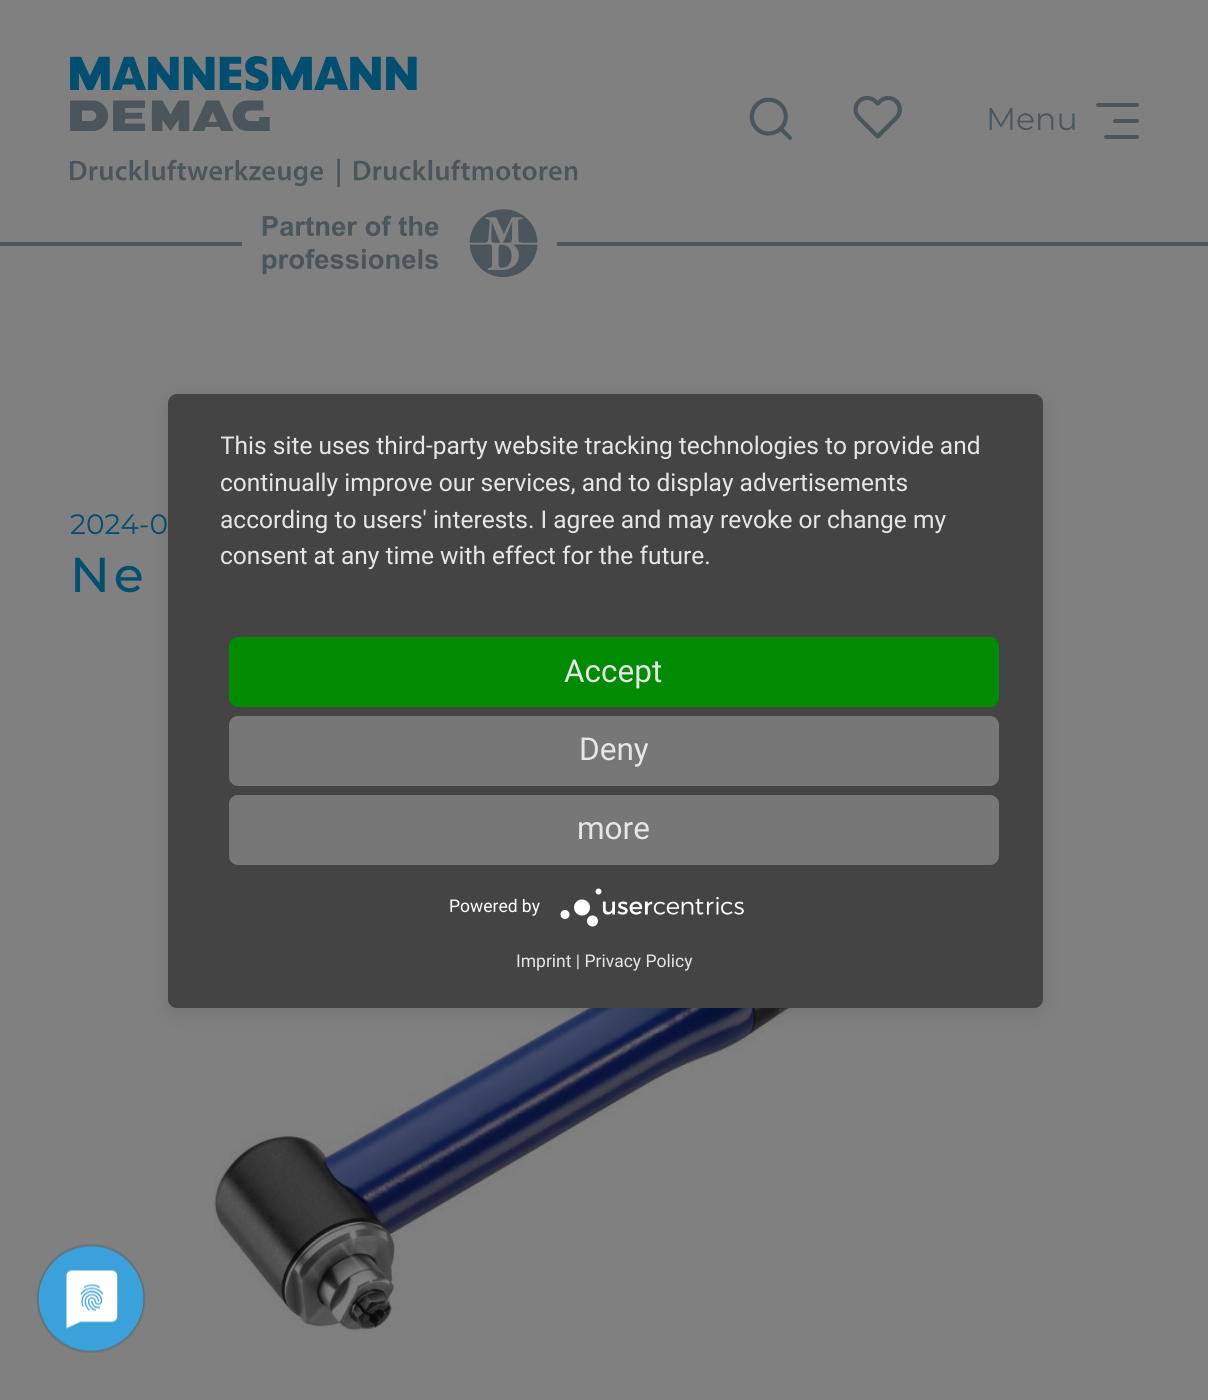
import math
import cairo

surface = cairo.ImageSurface(cairo.FORMAT_RGB24, 1208, 1400)
ctx = cairo.Context(surface)
options = cairo.FontOptions()
options.set_hint_metrics(cairo.HINT_METRICS_OFF)
options.set_hint_style(cairo.HINT_STYLE_NONE)
ctx.set_font_options(options)
ctx.set_miter_limit(4)


def set_color(code):
    ctx.set_source_rgb(*(v / 255 for v in bytes.fromhex(code[-6:])))


def draw_text(x, y, s, family, size, color, bold=False, italic=False):
    ctx.select_font_face(family, cairo.FONT_SLANT_ITALIC if italic else cairo.FONT_SLANT_NORMAL, cairo.FONT_WEIGHT_BOLD if bold else cairo.FONT_WEIGHT_NORMAL)
    ctx.set_font_size(size)
    set_color(color)
    ctx.move_to(x, y)
    ctx.show_text(s)


def draw_spaced(x, y, s, letter, word):
    ctx.move_to(x, y)
    for ch in s:
        ctx.show_text(ch)
        ctx.rel_move_to(letter + word * (ch == ' '), 0)


def fill_rect(x, y, w, h, color):
    set_color(color)
    ctx.rectangle(x, y, w, h)
    ctx.fill()


def rounded_rect(x, y, w, h, r):
    ctx.new_sub_path()
    for i, (u, v) in enumerate([(x + w - r, y + h - r), (x + r, y + h - r), (x + r, y + r), (x + w - r, y + r)]):
        ctx.arc(u, v, r, i * math.pi / 2, (i + 1) * math.pi / 2)
    ctx.close_path()


def draw_shadow(x, y, w, h, r, blur, alpha):
    ctx.push_group_with_content(cairo.CONTENT_ALPHA)
    ctx.set_operator(cairo.OPERATOR_SOURCE)
    for i in range(15, -16, -2):
        e = blur * i / 6
        if min(w, h) + 2 * e > 0:
            ctx.set_source_rgba(0, 0, 0, alpha * math.erfc((i - 1) / 8.5) / 2)
            rounded_rect(x - e, y - e, w + 2 * e, h + 2 * e, max(0, min(r + e + blur * .6, min(w, h) / 2 + e)))
            ctx.fill()
    ctx.mask(ctx.pop_group())


def draw_image(path, x, y, w, h):
    ctx.save()
    ctx.set_source_surface(cairo.ImageSurface.create_from_png(path), x, y)
    ctx.rectangle(x, y, w, h)
    ctx.fill()
    ctx.restore()


set_color("#808080")
ctx.paint()
draw_image("assets/img1.png", 70, 56, 508, 131)
draw_image("assets/img2.png", 749, 97, 43, 43)
draw_image("assets/img3.png", 853, 95, 49, 44)
draw_text(986, 130, "Menu", "Montserrat", 31.5, "#4a575d")
rounded_rect(1096, 103, 43, 4, 2)
ctx.fill()
rounded_rect(1113, 119, 26, 4, 2)
ctx.fill()
rounded_rect(1104, 135, 35, 4, 2)
ctx.fill()
fill_rect(0, 242, 242, 4, "#4a575d")
draw_image("assets/img4.png", 262, 209, 276, 68)
fill_rect(557, 242, 651, 4, "#4a575d")
draw_text(70, 534, "2024-0", "Montserrat", 28, "#004f70")
ctx.select_font_face("Montserrat Medium")
ctx.set_font_size(49)
draw_spaced(70, 592, "Ne", 4, 0)
draw_image("assets/img5.png", 214, 1008, 631, 324)
set_color("#000000")
draw_shadow(168, 399, 875, 614, 9, 9, 0.1)
ctx.save()
rounded_rect(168, 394, 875, 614, 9)
ctx.clip()
draw_shadow(168, 404, 875, 615, 0, 31.5, 0.3)
ctx.restore()
set_color("#444444")
rounded_rect(168, 394, 875, 614, 9)
ctx.fill()
ctx.save()
ctx.rectangle(221, 429, 770, 182)
ctx.clip()
draw_text(220, 454, "This site uses third-party website tracking technologies to provide and", "Roboto", 24.5, "#e6e6e6")
draw_text(220, 491, "continually improve our services, and to display advertisements", "Roboto", 24.5, "#e6e6e6")
ctx.restore()
draw_text(220, 528, "according to users' interests. I agree and may revoke or change my", "Roboto", 24.5, "#e6e6e6")
ctx.save()
ctx.rectangle(221, 429, 770, 182)
ctx.clip()
draw_text(220, 564, "consent at any time with effect for the future.", "Roboto", 24.5, "#e6e6e6")
ctx.restore()
set_color("#008b02")
rounded_rect(229, 637, 770, 70, 9)
ctx.fill()
draw_text(564, 682, "Accept", "Roboto", 31.5, "#e6e6e6")
set_color("#777777")
rounded_rect(229, 716, 770, 70, 9)
ctx.fill()
draw_text(579, 760, "Deny", "Roboto", 31.5, "#e6e6e6")
set_color("#777777")
rounded_rect(229, 795, 770, 70, 9)
ctx.fill()
draw_text(577, 839, "more", "Roboto", 31.5, "#e6e6e6")
draw_text(449, 912, "Powered by", "Roboto", 17.5, "#ffffff")
draw_image("assets/img6.png", 560, 888, 184, 39)
draw_text(516, 967, "Imprint | Privacy Policy", "Roboto", 17.5, "#e6e6e6")
draw_image("assets/img7.png", 36, 1244, 110, 109)
surface.write_to_png("output.png")
